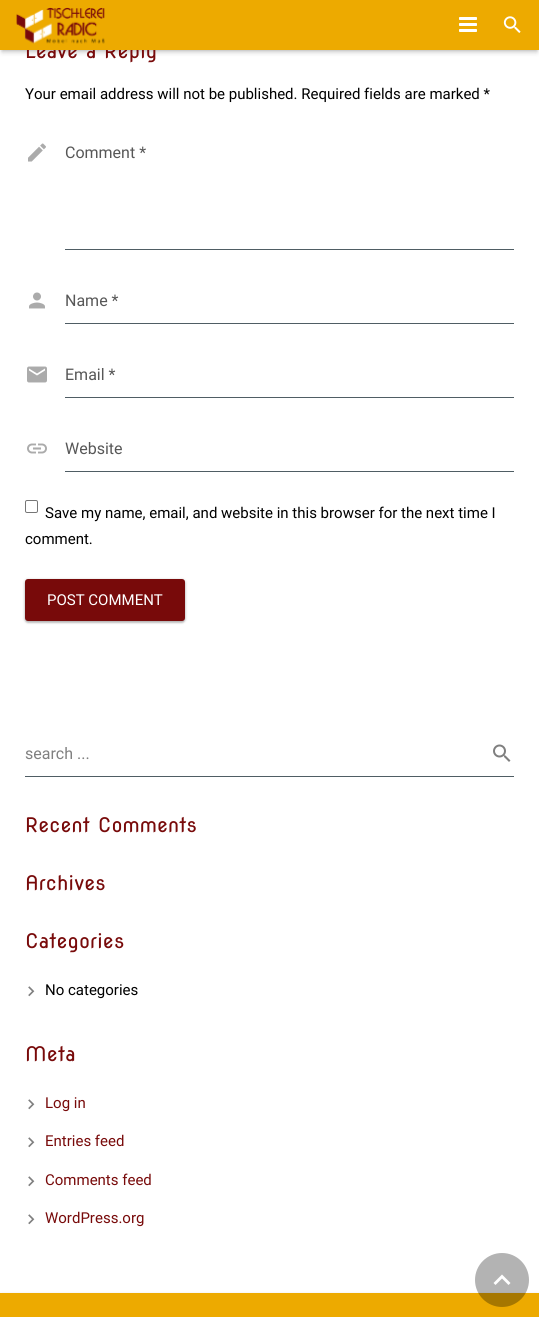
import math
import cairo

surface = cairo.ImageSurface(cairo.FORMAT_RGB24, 539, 1317)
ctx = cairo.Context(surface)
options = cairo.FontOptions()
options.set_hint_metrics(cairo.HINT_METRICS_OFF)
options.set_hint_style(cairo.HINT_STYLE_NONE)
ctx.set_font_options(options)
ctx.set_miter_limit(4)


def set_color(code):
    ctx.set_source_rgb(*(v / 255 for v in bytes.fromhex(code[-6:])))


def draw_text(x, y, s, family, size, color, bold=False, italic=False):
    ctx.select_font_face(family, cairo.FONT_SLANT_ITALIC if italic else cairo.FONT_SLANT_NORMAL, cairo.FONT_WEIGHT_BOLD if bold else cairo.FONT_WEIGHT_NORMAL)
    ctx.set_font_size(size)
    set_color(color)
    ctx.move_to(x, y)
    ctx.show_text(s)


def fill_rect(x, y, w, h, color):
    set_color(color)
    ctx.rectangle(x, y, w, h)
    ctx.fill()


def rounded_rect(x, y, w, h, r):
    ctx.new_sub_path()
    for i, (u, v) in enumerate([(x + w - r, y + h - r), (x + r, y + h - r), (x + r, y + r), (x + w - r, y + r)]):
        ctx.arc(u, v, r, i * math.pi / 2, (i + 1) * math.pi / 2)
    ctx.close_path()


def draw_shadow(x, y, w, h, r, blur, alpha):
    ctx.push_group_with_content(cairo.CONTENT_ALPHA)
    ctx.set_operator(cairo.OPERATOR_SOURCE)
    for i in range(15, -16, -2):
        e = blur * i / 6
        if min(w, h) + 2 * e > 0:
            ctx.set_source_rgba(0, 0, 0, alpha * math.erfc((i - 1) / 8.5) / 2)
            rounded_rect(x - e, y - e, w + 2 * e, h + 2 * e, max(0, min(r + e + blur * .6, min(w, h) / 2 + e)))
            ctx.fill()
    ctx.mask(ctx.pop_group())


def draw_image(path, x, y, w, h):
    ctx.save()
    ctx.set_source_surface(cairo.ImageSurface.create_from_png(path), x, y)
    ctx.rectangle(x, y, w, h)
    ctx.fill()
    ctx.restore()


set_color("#ffffff")
ctx.paint()
set_color("#000000")
draw_shadow(1, 3, 537, 48, 0, 0.5, 0.05)
draw_shadow(2, 6, 535, 46, 0, 2.5, 0.22)
draw_text(25, 58, "Leave a Reply", "Nova Round", 20, "#780a0a")
fill_rect(0, 0, 539, 50, "#edaa00")
draw_image("assets/img1.png", 16, 7, 89, 37)
draw_image("assets/img2.png", 459, 17, 18, 15)
draw_image("assets/img3.png", 503, 16, 18, 17)
draw_text(25, 99, "Your email address will not be published. Required fields are marked *", "Roboto", 15, "#000000")
draw_image("assets/img4.png", 28, 143, 18, 19)
draw_text(65, 158, "Comment *", "Roboto", 16, "#575757")
fill_rect(65, 249, 449, 1, "#4f5d64")
draw_image("assets/img5.png", 29, 292, 16, 17)
draw_text(65, 306, "Name *", "Roboto", 16, "#575757")
fill_rect(65, 323, 449, 1, "#4f5d64")
draw_image("assets/img6.png", 27, 366, 20, 17)
draw_text(65, 380, "Email *", "Roboto", 16, "#575757")
fill_rect(65, 397, 449, 1, "#4f5d64")
draw_image("assets/img7.png", 27, 443, 20, 11)
draw_text(65, 454, "Website", "Roboto", 16, "#575757")
fill_rect(65, 471, 449, 1, "#4f5d64")
rounded_rect(25.5, 500.5, 12, 12, 1.5)
set_color("#767676")
ctx.set_line_width(1)
ctx.stroke()
draw_text(45, 518, "Save my name, email, and website in this browser for the next time I", "Roboto", 15, "#000000")
draw_text(25, 544, "comment.", "Roboto", 15, "#000000")
set_color("#000000")
draw_shadow(25, 580, 160, 42, 3, 1.5, 0.3)
draw_shadow(25, 581, 160, 42, 3, 0.5, 0.1)
set_color("#780a0a")
rounded_rect(25, 579, 160, 42, 3)
ctx.fill()
draw_text(47, 605, "POST COMMENT", "Roboto", 15, "#ffffff")
fill_rect(25, 776, 489, 1, "#4f5d64")
draw_text(25, 759, "search ...", "Roboto", 16, "#808080")
draw_image("assets/img8.png", 493, 744, 18, 18)
draw_text(25, 832, "Recent Comments", "Nova Round", 20, "#780a0a")
draw_text(25, 890, "Archives", "Nova Round", 20, "#780a0a")
draw_text(25, 948, "Categories", "Nova Round", 20, "#780a0a")
draw_image("assets/img9.png", 28, 986, 7, 11)
draw_text(45, 995, "No categories", "Roboto", 15, "#000000")
draw_text(25, 1061, "Meta", "Nova Round", 20, "#780a0a")
draw_image("assets/img9.png", 28, 1099, 7, 11)
draw_text(45, 1108, "Log in", "Roboto", 15, "#780a0a")
draw_image("assets/img9.png", 28, 1137, 7, 11)
draw_text(45, 1146, "Entries feed", "Roboto", 15, "#780a0a")
draw_image("assets/img9.png", 28, 1176, 7, 11)
draw_text(45, 1185, "Comments feed", "Roboto", 15, "#780a0a")
draw_image("assets/img9.png", 28, 1214, 7, 11)
draw_text(45, 1223, "WordPress.org", "Roboto", 15, "#780a0a")
set_color("#000000")
draw_shadow(0, 1295, 539, 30, 0, 2.5, 0.15)
fill_rect(0, 1293, 539, 24, "#edaa00")
ctx.set_source_rgba(0, 0, 0, 0.3)
ctx.arc(502, 1280, 27, 0, 2 * math.pi)
ctx.fill()
set_color("#ffffff")
ctx.new_path()
ctx.move_to(502, 1274.5)
ctx.line_to(493.5, 1283)
ctx.line_to(495.5, 1285)
ctx.line_to(502, 1278.5)
ctx.line_to(508.5, 1285)
ctx.line_to(510.5, 1283)
ctx.close_path()
ctx.fill()
surface.write_to_png("output.png")
